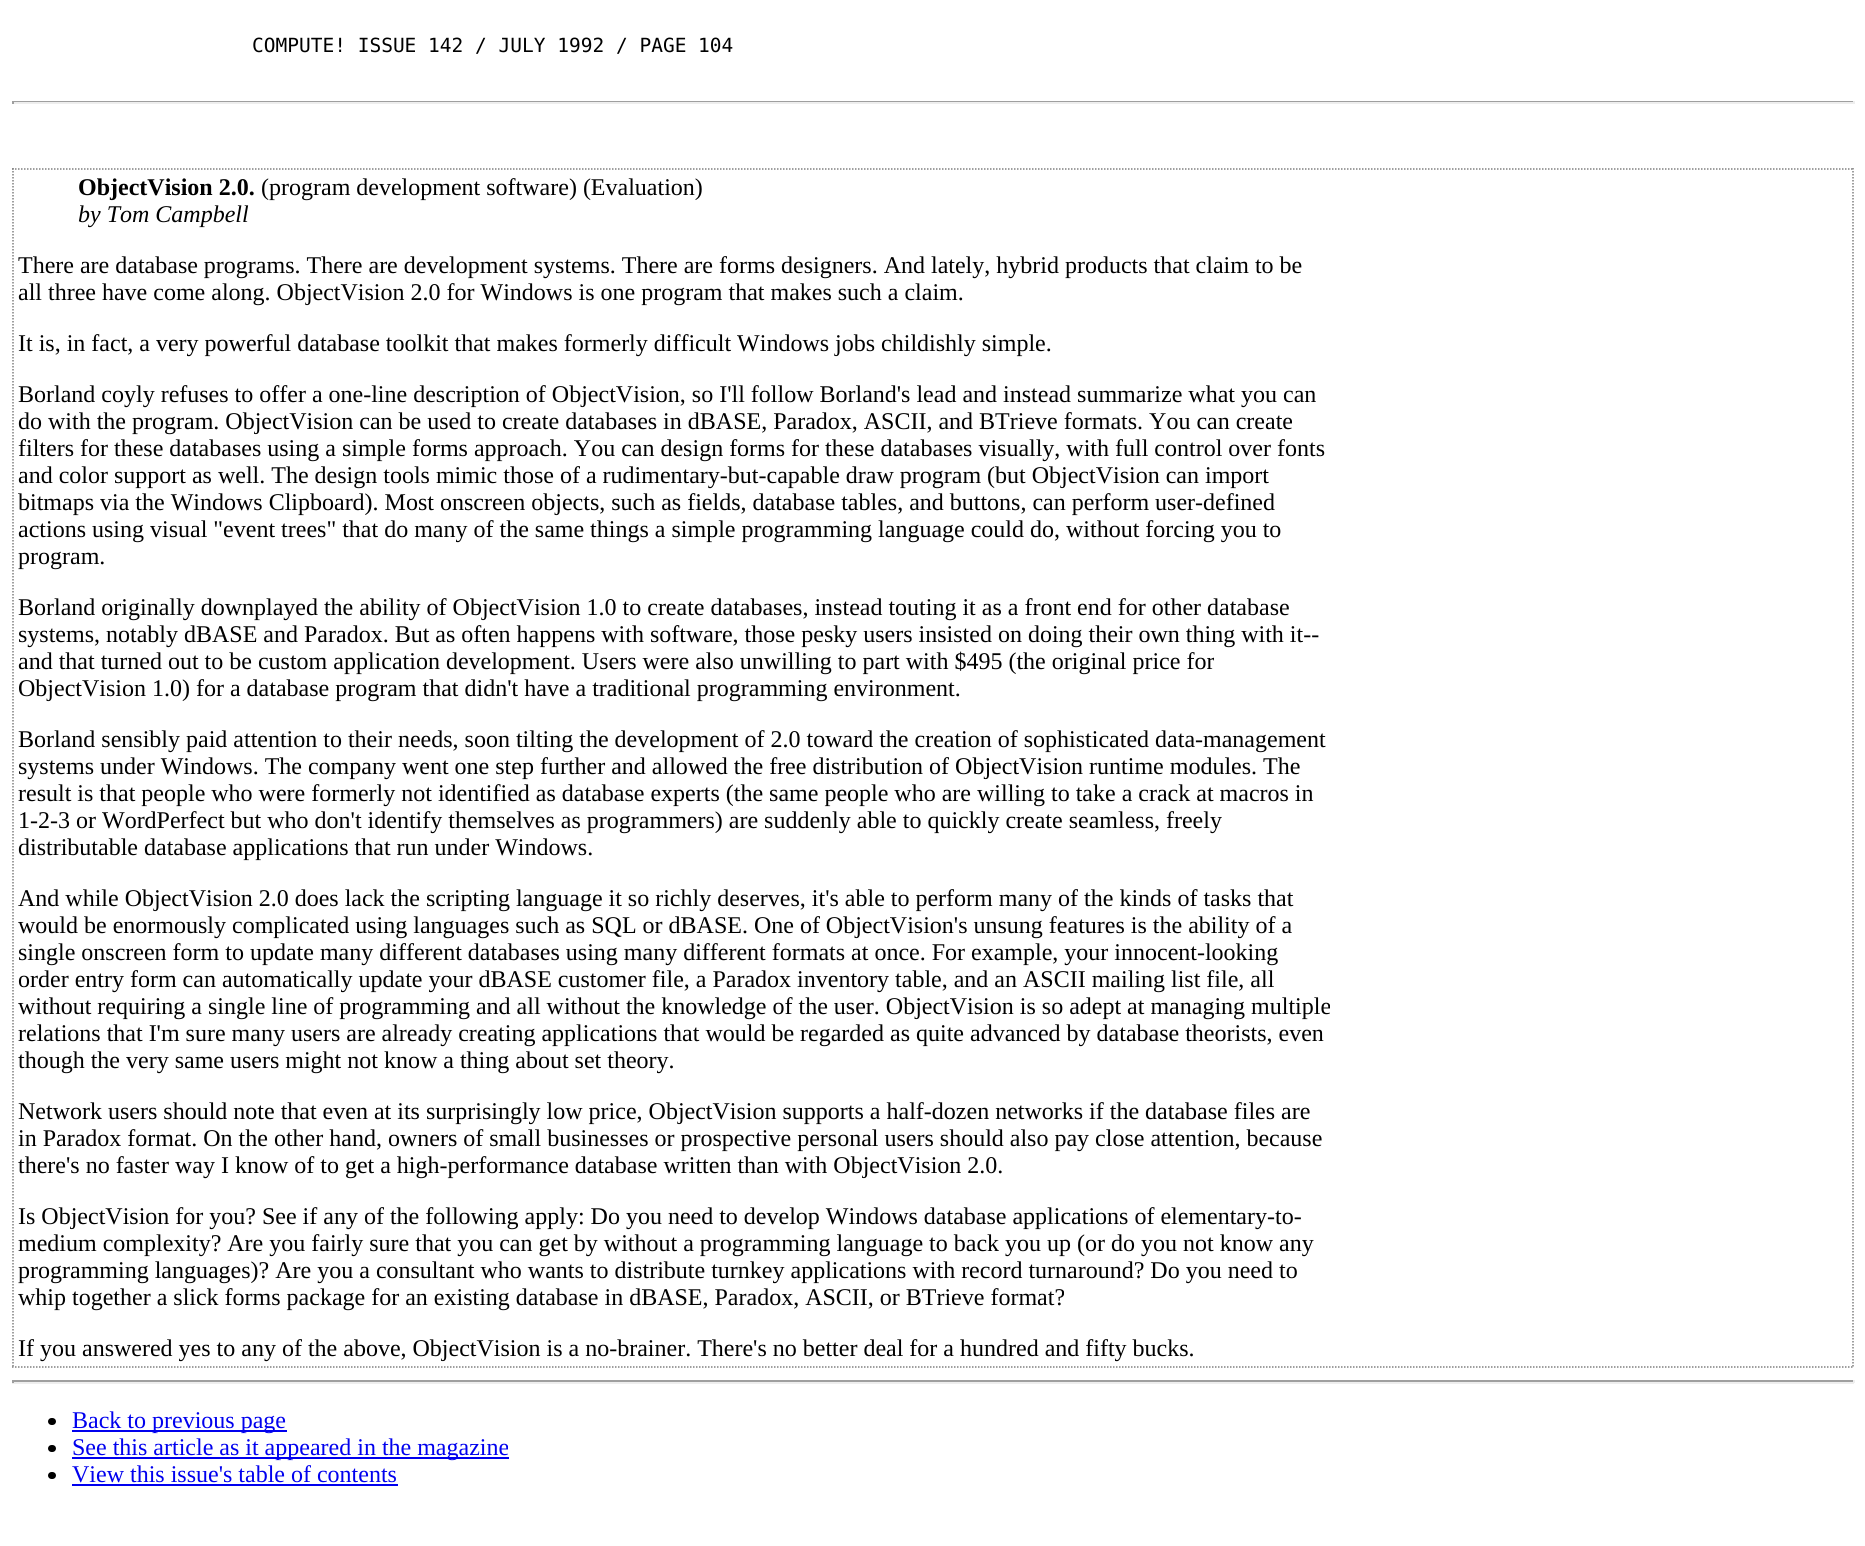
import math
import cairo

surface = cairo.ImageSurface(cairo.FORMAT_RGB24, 1865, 1546)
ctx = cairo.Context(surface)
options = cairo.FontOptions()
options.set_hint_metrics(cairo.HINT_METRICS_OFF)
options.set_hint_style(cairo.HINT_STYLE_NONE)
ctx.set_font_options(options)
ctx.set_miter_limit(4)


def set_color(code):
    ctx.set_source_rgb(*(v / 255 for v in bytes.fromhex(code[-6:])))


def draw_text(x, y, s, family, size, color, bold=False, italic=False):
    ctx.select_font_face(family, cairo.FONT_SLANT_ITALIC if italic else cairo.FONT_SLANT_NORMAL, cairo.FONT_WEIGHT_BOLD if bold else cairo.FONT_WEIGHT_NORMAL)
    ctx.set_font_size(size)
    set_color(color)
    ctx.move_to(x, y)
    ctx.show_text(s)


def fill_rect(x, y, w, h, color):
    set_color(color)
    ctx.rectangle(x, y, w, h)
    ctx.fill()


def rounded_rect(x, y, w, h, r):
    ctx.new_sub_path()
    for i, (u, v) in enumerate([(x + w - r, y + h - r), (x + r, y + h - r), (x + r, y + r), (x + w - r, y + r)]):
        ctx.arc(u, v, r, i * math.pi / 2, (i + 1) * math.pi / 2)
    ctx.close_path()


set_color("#ffffff")
ctx.paint()
draw_text(252, 52, "COMPUTE! ISSUE 142 / JULY 1992 / PAGE 104", "DejaVu Sans Mono", 19.5, "#000000")
fill_rect(12, 101, 1842, 1, "#9f9f9f")
fill_rect(1853, 101, 2, 3, "#eeeeee")
fill_rect(12, 102, 1842, 2, "#eeeeee")
fill_rect(12, 101, 2, 3, "#9f9f9f")
ctx.new_path()
ctx.move_to(12, 169)
ctx.line_to(1854, 169)
set_color("#808080")
ctx.set_line_width(1.5)
ctx.set_dash([1.5, 1.5])
ctx.stroke()
ctx.new_path()
ctx.move_to(1853, 168)
ctx.line_to(1853, 1368)
ctx.stroke()
ctx.new_path()
ctx.move_to(12, 1367)
ctx.line_to(1854, 1367)
ctx.stroke()
ctx.new_path()
ctx.move_to(13, 168)
ctx.line_to(13, 1368)
ctx.stroke()
draw_text(78, 195, "ObjectVision 2.0.", "Liberation Serif", 24, "#000000", bold=True)
draw_text(261, 195, "(program development software) (Evaluation)", "Liberation Serif", 24, "#000000")
draw_text(78, 222, "by Tom Campbell", "Liberation Serif", 24, "#000000", italic=True)
draw_text(18, 273, "There are database programs. There are development systems. There are forms designers. And lately, hybrid products that claim to be", "Liberation Serif", 24, "#000000")
draw_text(18, 300, "all three have come along. ObjectVision 2.0 for Windows is one program that makes such a claim.", "Liberation Serif", 24, "#000000")
draw_text(18, 351, "It is, in fact, a very powerful database toolkit that makes formerly difficult Windows jobs childishly simple.", "Liberation Serif", 24, "#000000")
draw_text(18, 402, "Borland coyly refuses to offer a one-line description of ObjectVision, so I'll follow Borland's lead and instead summarize what you can", "Liberation Serif", 24, "#000000")
draw_text(18, 429, "do with the program. ObjectVision can be used to create databases in dBASE, Paradox, ASCII, and BTrieve formats. You can create", "Liberation Serif", 24, "#000000")
draw_text(18, 456, "filters for these databases using a simple forms approach. You can design forms for these databases visually, with full control over fonts", "Liberation Serif", 24, "#000000")
draw_text(18, 483, "and color support as well. The design tools mimic those of a rudimentary-but-capable draw program (but ObjectVision can import", "Liberation Serif", 24, "#000000")
draw_text(18, 510, "bitmaps via the Windows Clipboard). Most onscreen objects, such as fields, database tables, and buttons, can perform user-defined", "Liberation Serif", 24, "#000000")
draw_text(18, 537, "actions using visual \"event trees\" that do many of the same things a simple programming language could do, without forcing you to", "Liberation Serif", 24, "#000000")
draw_text(18, 564, "program.", "Liberation Serif", 24, "#000000")
draw_text(18, 615, "Borland originally downplayed the ability of ObjectVision 1.0 to create databases, instead touting it as a front end for other database", "Liberation Serif", 24, "#000000")
draw_text(18, 642, "systems, notably dBASE and Paradox. But as often happens with software, those pesky users insisted on doing their own thing with it--", "Liberation Serif", 24, "#000000")
draw_text(18, 669, "and that turned out to be custom application development. Users were also unwilling to part with $495 (the original price for", "Liberation Serif", 24, "#000000")
draw_text(18, 696, "ObjectVision 1.0) for a database program that didn't have a traditional programming environment.", "Liberation Serif", 24, "#000000")
draw_text(18, 747, "Borland sensibly paid attention to their needs, soon tilting the development of 2.0 toward the creation of sophisticated data-management", "Liberation Serif", 24, "#000000")
draw_text(18, 774, "systems under Windows. The company went one step further and allowed the free distribution of ObjectVision runtime modules. The", "Liberation Serif", 24, "#000000")
draw_text(18, 801, "result is that people who were formerly not identified as database experts (the same people who are willing to take a crack at macros in", "Liberation Serif", 24, "#000000")
draw_text(18, 828, "1-2-3 or WordPerfect but who don't identify themselves as programmers) are suddenly able to quickly create seamless, freely", "Liberation Serif", 24, "#000000")
draw_text(18, 855, "distributable database applications that run under Windows.", "Liberation Serif", 24, "#000000")
draw_text(18, 906, "And while ObjectVision 2.0 does lack the scripting language it so richly deserves, it's able to perform many of the kinds of tasks that", "Liberation Serif", 24, "#000000")
draw_text(18, 933, "would be enormously complicated using languages such as SQL or dBASE. One of ObjectVision's unsung features is the ability of a", "Liberation Serif", 24, "#000000")
draw_text(18, 960, "single onscreen form to update many different databases using many different formats at once. For example, your innocent-looking", "Liberation Serif", 24, "#000000")
draw_text(18, 987, "order entry form can automatically update your dBASE customer file, a Paradox inventory table, and an ASCII mailing list file, all", "Liberation Serif", 24, "#000000")
draw_text(18, 1014, "without requiring a single line of programming and all without the knowledge of the user. ObjectVision is so adept at managing multiple", "Liberation Serif", 24, "#000000")
draw_text(18, 1041, "relations that I'm sure many users are already creating applications that would be regarded as quite advanced by database theorists, even", "Liberation Serif", 24, "#000000")
draw_text(18, 1068, "though the very same users might not know a thing about set theory.", "Liberation Serif", 24, "#000000")
draw_text(18, 1119, "Network users should note that even at its surprisingly low price, ObjectVision supports a half-dozen networks if the database files are", "Liberation Serif", 24, "#000000")
draw_text(18, 1146, "in Paradox format. On the other hand, owners of small businesses or prospective personal users should also pay close attention, because", "Liberation Serif", 24, "#000000")
draw_text(18, 1173, "there's no faster way I know of to get a high-performance database written than with ObjectVision 2.0.", "Liberation Serif", 24, "#000000")
draw_text(18, 1224, "Is ObjectVision for you? See if any of the following apply: Do you need to develop Windows database applications of elementary-to-", "Liberation Serif", 24, "#000000")
draw_text(18, 1251, "medium complexity? Are you fairly sure that you can get by without a programming language to back you up (or do you not know any", "Liberation Serif", 24, "#000000")
draw_text(18, 1278, "programming languages)? Are you a consultant who wants to distribute turnkey applications with record turnaround? Do you need to", "Liberation Serif", 24, "#000000")
draw_text(18, 1305, "whip together a slick forms package for an existing database in dBASE, Paradox, ASCII, or BTrieve format?", "Liberation Serif", 24, "#000000")
draw_text(18, 1356, "If you answered yes to any of the above, ObjectVision is a no-brainer. There's no better deal for a hundred and fifty bucks.", "Liberation Serif", 24, "#000000")
fill_rect(12, 1380, 1842, 2, "#9f9f9f")
fill_rect(1853, 1380, 2, 3, "#eeeeee")
fill_rect(12, 1382, 1842, 2, "#eeeeee")
fill_rect(12, 1380, 2, 3, "#9f9f9f")
set_color("#000000")
rounded_rect(48, 1418, 8, 7, 3.5)
ctx.fill()
fill_rect(72, 1430, 215, 2, "#0000ee")
draw_text(72, 1428, "Back to previous page", "Liberation Serif", 24, "#0000ee")
set_color("#000000")
rounded_rect(48, 1445, 8, 7, 3.5)
ctx.fill()
fill_rect(72, 1457, 437, 2, "#0000ee")
draw_text(72, 1455, "See this article as it appeared in the magazine", "Liberation Serif", 24, "#0000ee")
set_color("#000000")
rounded_rect(48, 1472, 8, 7, 3.5)
ctx.fill()
draw_text(72, 1482, "View this issue's table of contents", "Liberation Serif", 24, "#0000ee")
fill_rect(72, 1484, 326, 2, "#0000ee")
surface.write_to_png("output.png")
